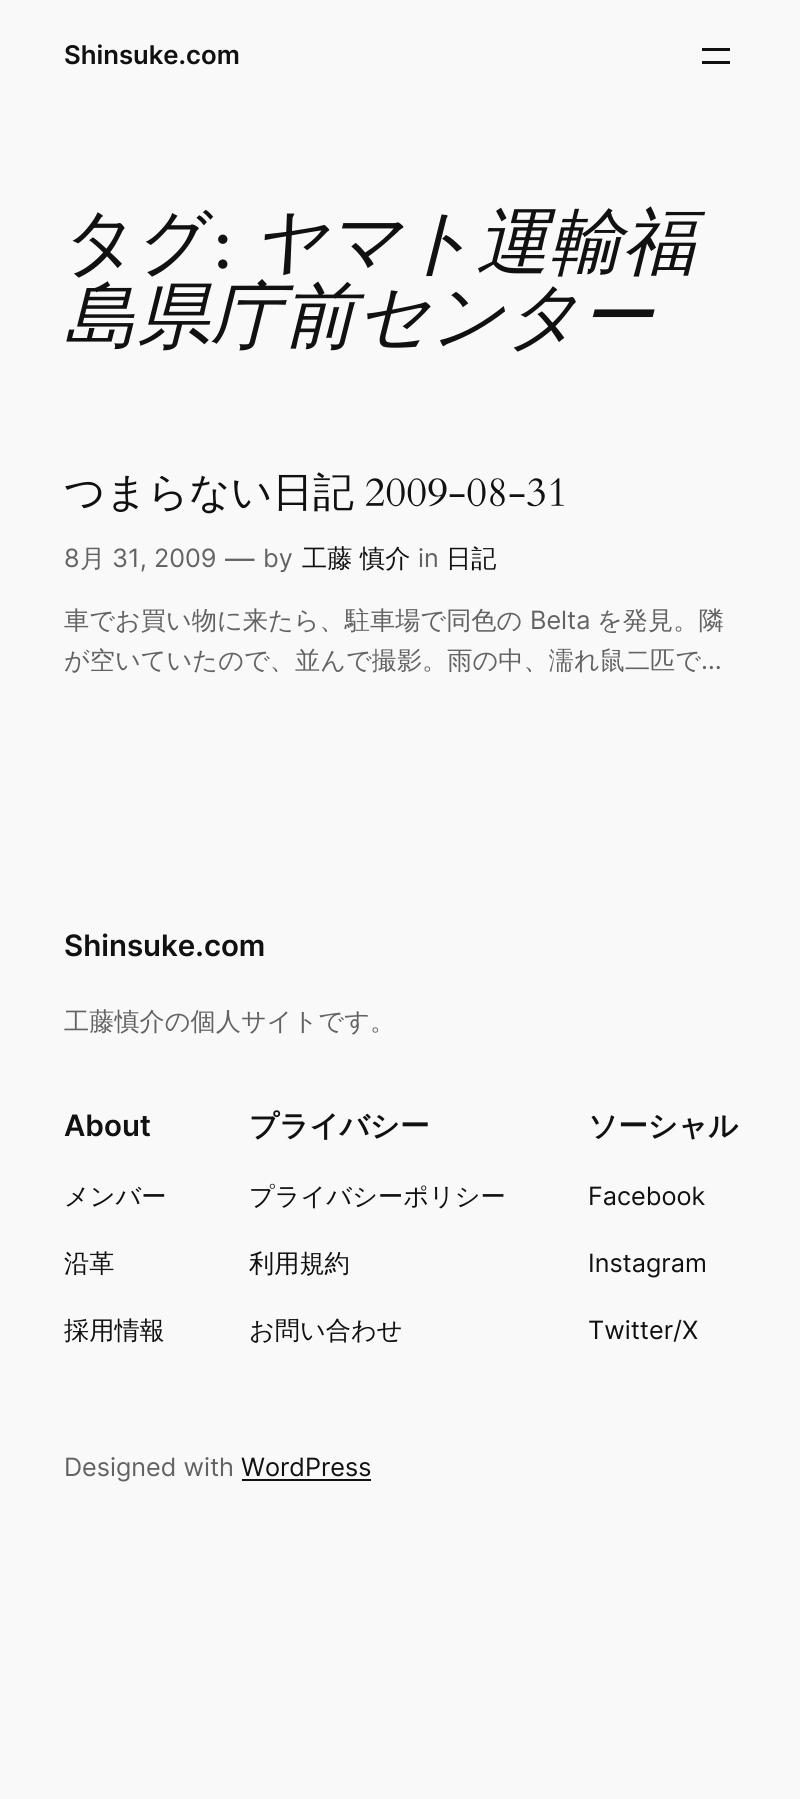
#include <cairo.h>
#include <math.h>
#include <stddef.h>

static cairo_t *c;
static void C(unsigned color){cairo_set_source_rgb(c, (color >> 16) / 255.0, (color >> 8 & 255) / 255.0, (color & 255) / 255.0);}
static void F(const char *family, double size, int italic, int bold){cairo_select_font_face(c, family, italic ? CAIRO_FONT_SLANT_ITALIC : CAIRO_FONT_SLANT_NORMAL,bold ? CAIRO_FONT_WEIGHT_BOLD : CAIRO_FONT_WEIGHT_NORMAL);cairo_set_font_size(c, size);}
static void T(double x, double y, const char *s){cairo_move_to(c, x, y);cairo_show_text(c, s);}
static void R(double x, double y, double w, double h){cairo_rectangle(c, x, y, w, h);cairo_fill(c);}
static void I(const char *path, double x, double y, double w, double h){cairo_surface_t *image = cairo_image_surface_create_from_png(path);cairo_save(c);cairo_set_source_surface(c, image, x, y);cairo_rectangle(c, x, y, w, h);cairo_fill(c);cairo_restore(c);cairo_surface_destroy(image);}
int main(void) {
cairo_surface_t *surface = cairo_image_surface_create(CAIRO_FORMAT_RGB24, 800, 1799);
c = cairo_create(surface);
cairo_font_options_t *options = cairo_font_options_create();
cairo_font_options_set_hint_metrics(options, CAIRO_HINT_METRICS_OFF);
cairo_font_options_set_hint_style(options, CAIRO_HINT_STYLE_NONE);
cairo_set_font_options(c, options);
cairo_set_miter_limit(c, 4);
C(0xf9f9f9);
cairo_paint(c);
F("Inter SemiBold",25.75,0,0);
C(0x111111);
T(64,64,"Shinsuke.com");
R(702,48,28,3);
R(702,61,28,3);
F("WenQuanYi Zen Hei Medium",73,0,0);
T(64,267,"タグ");
I("1.png",218,234,10,35);
F("WenQuanYi Zen Hei Medium",73,1,0);
T(252,267,"ヤマト運輸福");
T(64,341,"島県庁前センター");
F("WenQuanYi Zen Hei Medium",40.75,0,0);
T(64,506,"つまらない日記");
I("2.png",366,478,198,29);
F("Inter",25.2,0,0);
C(0x636363);
T(64,567,"8");
F("WenQuanYi Zen Hei Medium",25.2,0,0);
T(80,567,"月");
F("Inter",25.2,0,0);
T(112,567,"31, 2009");
F("Inter",29.5,0,0);
T(225,569,"—");
F("Inter",25.2,0,0);
T(263,567,"by");
F("WenQuanYi Zen Hei Medium",25.2,0,0);
C(0x111111);
T(302,567,"工藤 慎介");
F("Inter",25.2,0,0);
C(0x636363);
T(418,567,"in");
F("WenQuanYi Zen Hei Medium",25.2,0,0);
C(0x111111);
T(446,567,"日記");
C(0x636363);
T(64,629,"車でお買い物に来たら、駐車場で同色の");
F("Inter",25.2,0,0);
T(530,629,"Belta");
F("WenQuanYi Zen Hei Medium",25.2,0,0);
T(597,629,"を発見。隣");
T(64,669,"が空いていたので、並んで撮影。雨の中、濡れ鼠二匹で");
F("Inter",25.2,0,0);
T(701,669,"…");
F("Inter SemiBold",29.5,0,0);
C(0x111111);
T(64,956,"Shinsuke.com");
F("WenQuanYi Zen Hei Medium",25.2,0,0);
C(0x636363);
T(64,1030,"工藤慎介の個人サイトです。");
F("Inter SemiBold",29.5,0,0);
C(0x111111);
T(64,1136,"About");
F("WenQuanYi Zen Hei Medium",25.2,0,0);
T(64,1205,"メンバー");
T(64,1272,"沿革");
T(64,1339,"採用情報");
F("WenQuanYi Zen Hei",29.5,0,1);
T(249,1136,"プライバシー");
F("WenQuanYi Zen Hei Medium",25.2,0,0);
T(249,1205,"プライバシーポリシー");
T(249,1272,"利用規約");
T(249,1339,"お問い合わせ");
F("WenQuanYi Zen Hei",29.5,0,1);
T(588,1136,"ソーシャル");
F("Inter",25.2,0,0);
T(588,1205,"Facebook");
T(588,1272,"Instagram");
T(588,1339,"Twitter/X");
C(0x636363);
T(64,1476,"Designed with");
C(0x111111);
T(241,1476,"WordPress");
R(242,1479,129,2);
cairo_surface_write_to_png(surface, "o.png");
cairo_font_options_destroy(options);
cairo_destroy(c);
cairo_surface_destroy(surface);
return 0;
}
